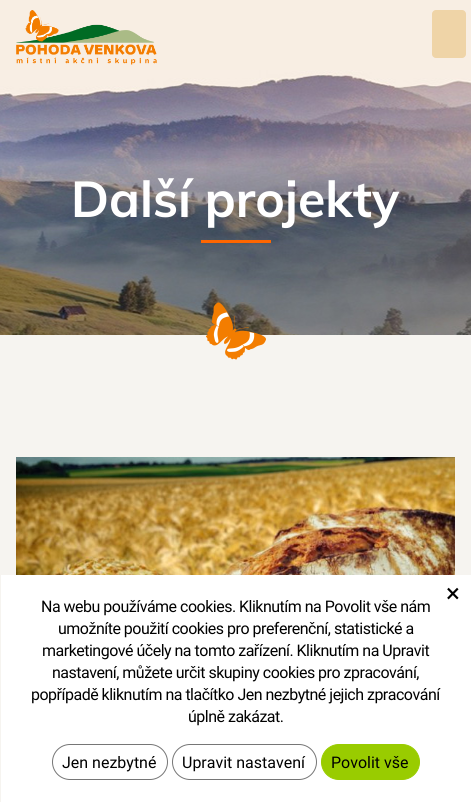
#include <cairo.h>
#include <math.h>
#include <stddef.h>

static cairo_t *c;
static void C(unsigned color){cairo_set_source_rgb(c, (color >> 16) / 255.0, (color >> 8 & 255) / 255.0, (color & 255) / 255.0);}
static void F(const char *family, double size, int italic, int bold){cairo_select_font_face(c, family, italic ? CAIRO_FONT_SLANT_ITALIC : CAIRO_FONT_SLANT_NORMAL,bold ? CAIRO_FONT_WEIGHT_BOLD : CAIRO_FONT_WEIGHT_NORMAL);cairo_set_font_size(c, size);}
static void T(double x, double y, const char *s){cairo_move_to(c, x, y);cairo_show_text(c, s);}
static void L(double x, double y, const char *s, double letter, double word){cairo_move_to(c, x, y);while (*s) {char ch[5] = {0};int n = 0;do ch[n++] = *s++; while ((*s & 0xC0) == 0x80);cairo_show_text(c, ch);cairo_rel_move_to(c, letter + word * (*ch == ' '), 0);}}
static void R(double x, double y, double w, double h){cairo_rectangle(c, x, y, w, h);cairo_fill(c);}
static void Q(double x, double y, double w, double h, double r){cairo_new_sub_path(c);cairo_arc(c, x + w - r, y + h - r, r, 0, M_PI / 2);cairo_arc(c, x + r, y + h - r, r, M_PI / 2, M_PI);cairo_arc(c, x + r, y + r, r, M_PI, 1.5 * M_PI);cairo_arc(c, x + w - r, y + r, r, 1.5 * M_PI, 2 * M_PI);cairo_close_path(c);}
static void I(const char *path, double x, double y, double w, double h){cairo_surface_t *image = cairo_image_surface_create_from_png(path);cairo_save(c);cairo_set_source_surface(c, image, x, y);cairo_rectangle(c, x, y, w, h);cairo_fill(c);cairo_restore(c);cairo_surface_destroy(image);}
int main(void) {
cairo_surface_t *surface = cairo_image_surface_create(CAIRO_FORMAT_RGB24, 471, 802);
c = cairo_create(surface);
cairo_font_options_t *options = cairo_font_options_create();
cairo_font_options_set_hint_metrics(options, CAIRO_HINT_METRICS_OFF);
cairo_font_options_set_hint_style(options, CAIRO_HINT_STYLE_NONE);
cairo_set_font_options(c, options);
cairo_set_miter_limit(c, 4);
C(0xf6f4f0);
cairo_paint(c);
C(0xf8eee3);
R(0,0,471,70);
I("1.png",16,10,141,55);
C(0xefd4a7);
Q(432,10,34,48,4);
cairo_fill(c);
I("2.png",0,70,471,265);
F("Muli",50,0,1);
C(0xffffff);
T(71,217,"Další projekty");
C(0xff6600);
R(201,240,70,3);
I("3.png",206,302,60,58);
I("4.png",16,457,439,118);
C(0xffffff);
R(1,575,470,227);
F("Roboto",26,0,0);
C(0x000000);
T(446,602,"×");
F("Roboto",16,0,0);
L(41,612,"Na webu používáme cookies. Kliknutím na Povolit vše nám",-.5,0);
L(58,634,"umožníte použití cookies pro preferenční, statistické a",-.5,0);
L(42,656,"marketingové účely na tomto zařízení. Kliknutím na Upravit",-.5,0);
L(52,678,"nastavení, můžete určit skupiny cookies pro zpracování,",-.5,0);
L(31,700,"popřípadě kliknutím na tlačítko Jen nezbytné jejich zpracování",-.5,0);
L(188,722,"úplně zakázat.",-.5,0);
Q(52.5,744.5,115,35,17.5);
C(0x767676);
cairo_set_line_width(c,1);
cairo_stroke(c);
C(0x000000);
T(62,768,"Jen nezbytné");
Q(172.5,744.5,144,35,17.5);
C(0x767676);
cairo_stroke(c);
C(0x000000);
T(182,768,"Upravit nastavení");
C(0x99cc00);
Q(321.5,744.5,98,35,17.5);
cairo_fill_preserve(c);
cairo_stroke(c);
C(0x000000);
T(331,768,"Povolit vše");
cairo_surface_write_to_png(surface, "o.png");
cairo_font_options_destroy(options);
cairo_destroy(c);
cairo_surface_destroy(surface);
return 0;
}
